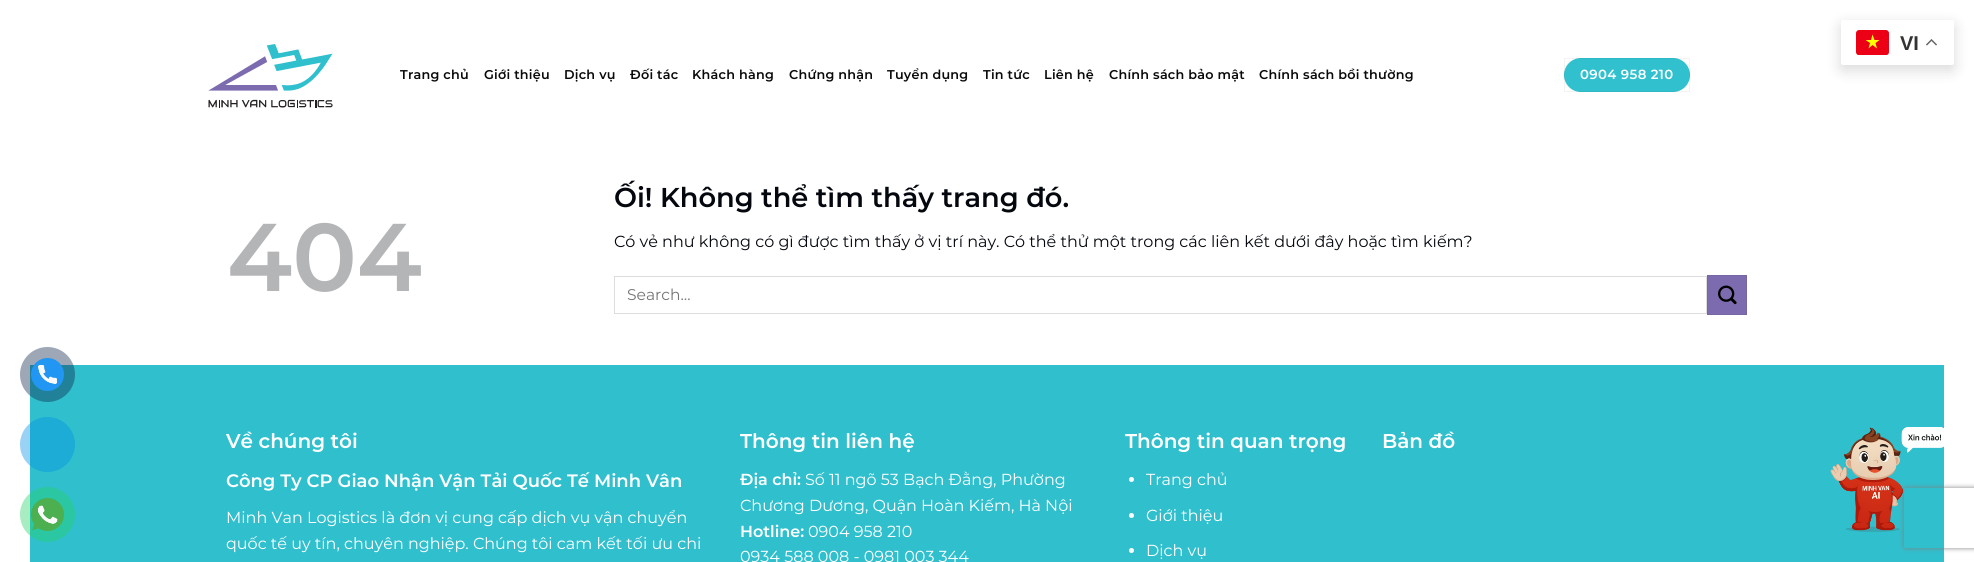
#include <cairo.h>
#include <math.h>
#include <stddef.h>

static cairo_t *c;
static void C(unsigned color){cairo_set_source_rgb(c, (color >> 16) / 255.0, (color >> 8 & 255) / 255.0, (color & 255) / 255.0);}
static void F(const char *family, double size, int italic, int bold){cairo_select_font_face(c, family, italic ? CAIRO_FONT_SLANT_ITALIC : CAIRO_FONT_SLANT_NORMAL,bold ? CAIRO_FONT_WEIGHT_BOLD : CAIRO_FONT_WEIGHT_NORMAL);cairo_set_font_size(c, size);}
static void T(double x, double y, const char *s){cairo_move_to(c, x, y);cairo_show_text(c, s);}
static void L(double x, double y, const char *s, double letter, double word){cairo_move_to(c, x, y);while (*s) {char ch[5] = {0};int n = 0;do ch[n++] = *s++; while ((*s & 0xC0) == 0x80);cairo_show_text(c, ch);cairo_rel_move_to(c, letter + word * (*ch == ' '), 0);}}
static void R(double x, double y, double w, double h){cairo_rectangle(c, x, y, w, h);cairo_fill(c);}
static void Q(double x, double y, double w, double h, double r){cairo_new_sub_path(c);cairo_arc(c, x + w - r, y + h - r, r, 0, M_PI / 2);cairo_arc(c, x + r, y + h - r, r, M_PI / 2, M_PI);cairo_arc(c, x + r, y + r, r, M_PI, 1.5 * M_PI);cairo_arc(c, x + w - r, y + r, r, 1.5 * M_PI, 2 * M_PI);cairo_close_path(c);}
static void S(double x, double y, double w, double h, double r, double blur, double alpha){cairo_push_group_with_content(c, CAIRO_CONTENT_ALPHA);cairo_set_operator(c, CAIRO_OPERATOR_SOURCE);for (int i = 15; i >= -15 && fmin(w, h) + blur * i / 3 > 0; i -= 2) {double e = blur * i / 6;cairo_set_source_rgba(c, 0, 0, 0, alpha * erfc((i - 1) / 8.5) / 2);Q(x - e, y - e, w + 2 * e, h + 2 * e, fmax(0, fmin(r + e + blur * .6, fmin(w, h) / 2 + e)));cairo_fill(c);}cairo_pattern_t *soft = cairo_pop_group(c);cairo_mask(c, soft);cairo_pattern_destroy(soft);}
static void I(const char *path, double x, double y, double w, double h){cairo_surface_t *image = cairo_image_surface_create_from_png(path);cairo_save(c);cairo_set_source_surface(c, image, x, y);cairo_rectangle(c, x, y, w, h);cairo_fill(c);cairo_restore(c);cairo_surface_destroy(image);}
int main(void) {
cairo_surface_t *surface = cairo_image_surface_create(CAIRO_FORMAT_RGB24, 1974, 562);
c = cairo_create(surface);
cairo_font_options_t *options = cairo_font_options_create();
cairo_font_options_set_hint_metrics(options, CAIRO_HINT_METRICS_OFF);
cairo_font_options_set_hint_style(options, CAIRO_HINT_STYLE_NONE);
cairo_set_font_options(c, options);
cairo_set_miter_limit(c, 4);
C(0xffffff);
cairo_paint(c);
C(0x000000);
S(1841,25,113,45,2,7.5,.15);
C(0xffffff);
Q(1841,20,113,45,2);
cairo_fill(c);
C(0xec0015);
cairo_new_path(c);
cairo_move_to(c,1859,30);
cairo_line_to(c,1886,30);
cairo_curve_to(c,1887.5,30,1889,31.5,1889,33);
cairo_line_to(c,1889,52);
cairo_curve_to(c,1889,53,1888.5,54.5,1887,55);
cairo_line_to(c,1858,55);
cairo_curve_to(c,1856.5,54.5,1856,53,1856,52);
cairo_line_to(c,1856,33);
cairo_curve_to(c,1856,31.5,1857.5,30,1859,30);
cairo_close_path(c);
cairo_fill(c);
C(0xffff00);
cairo_set_fill_rule(c,CAIRO_FILL_RULE_EVEN_ODD);
cairo_new_path(c);
cairo_move_to(c,1877,48.5);
cairo_line_to(c,1872.5,45);
cairo_line_to(c,1868.5,48.5);
cairo_line_to(c,1870,43);
cairo_line_to(c,1865.5,40);
cairo_line_to(c,1871,40);
cairo_line_to(c,1872.5,34.5);
cairo_line_to(c,1874.5,40);
cairo_line_to(c,1879.5,40);
cairo_line_to(c,1875.5,43);
cairo_close_path(c);
cairo_fill(c);
F("Liberation Sans",20,0,1);
C(0x333333);
T(1900,50,"VI");
I("1.png",1926,39,11,7);
C(0x30bfcd);
R(30,365,1914,197);
cairo_set_source_rgba(c,0.043,0.137,0.29,0.4);
cairo_arc(c,47.5,374.5,27.5,0,2 * M_PI);
cairo_fill(c);
I("2.png",31,358,33,33);
cairo_set_source_rgba(c,0,0.561,0.898,0.4);
cairo_arc(c,47.5,444.5,27.5,0,2 * M_PI);
cairo_fill(c);
cairo_set_source_rgba(c,0.145,0.827,0.4,0.4);
cairo_arc(c,47.5,514.5,27.5,0,2 * M_PI);
cairo_fill(c);
I("3.png",31,498,33,33);
I("4.png",208,44,125,64);
F("Montserrat SemiBold",12.75,0,0);
C(0x0a0a0a);
L(400,79,"Trang chủ",.25,0);
L(484,79,"Giới thiệu",.25,0);
L(564,79,"Dịch vụ",.25,0);
L(630,79,"Đối tác",.25,0);
L(692,79,"Khách hàng",.25,0);
L(789,79,"Chứng nhận",.25,0);
L(887,79,"Tuyển dụng",.25,0);
L(983,79,"Tin tức",.25,0);
L(1044,79,"Liên hệ",.25,0);
L(1109,79,"Chính sách bảo mật",.25,0);
L(1259,79,"Chính sách bồi thường",.25,0);
C(0x30c0ce);
Q(1564,58,126,34,17);
cairo_fill(c);
cairo_rectangle(c,1564.5,58.5,125,33);
cairo_set_source_rgba(c,0,0,0,0.05);
cairo_set_line_width(c,1);
cairo_stroke(c);
F("Montserrat SemiBold",13.25,0,0);
C(0xffffff);
L(1580,79,"0904 958 210",.4,0);
F("Montserrat SemiBold",96,0,0);
C(0xb4b5b7);
T(227,291,"404");
F("Montserrat SemiBold",27.25,0,0);
C(0x04080e);
T(614,207,"Ối! Không thể tìm thấy trang đó.");
F("Montserrat",16,0,0);
T(614,247,"Có vẻ như không có gì được tìm thấy ở vị trí này. Có thể thử một trong các liên kết dưới đây hoặc tìm kiếm?");
cairo_rectangle(c,614.5,276.5,1092,37);
C(0xdddddd);
cairo_stroke(c);
F("Montserrat",15.5,0,0);
C(0x757575);
T(627,300,"Search…");
C(0x7d6baf);
cairo_rectangle(c,1707.5,275.5,39,39);
cairo_fill_preserve(c);
C(0x7766a6);
cairo_stroke(c);
I("5.png",1718,285,19,20);
F("Montserrat SemiBold",20,0,0);
C(0xffffff);
T(226,448,"Về chúng tôi");
F("Montserrat SemiBold",18,0,0);
T(226,487,"Công Ty CP Giao Nhận Vận Tải Quốc Tế Minh Vân");
F("Montserrat",16,0,0);
T(226,523,"Minh Van Logistics là đơn vị cung cấp dịch vụ vận chuyển");
T(226,549,"quốc tế uy tín, chuyên nghiệp. Chúng tôi cam kết tối ưu chi");
F("Montserrat SemiBold",20,0,0);
T(740,448,"Thông tin liên hệ");
F("Montserrat SemiBold",16,0,0);
T(740,485,"Địa chỉ:");
F("Montserrat",16,0,0);
T(805,485,"Số 11 ngõ 53 Bạch Đằng, Phường");
T(740,511,"Chương Dương, Quận Hoàn Kiếm, Hà Nội");
F("Montserrat SemiBold",16,0,0);
T(740,537,"Hotline:");
F("Montserrat",16,0,0);
T(808,537,"0904 958 210");
T(740,562,"0934 588 008 - 0981 003 344");
F("Montserrat SemiBold",20,0,0);
T(1125,448,"Thông tin quan trọng");
cairo_new_path(c);
cairo_arc(c,1131.5,479.5,2.5,0,2 * M_PI);
cairo_fill(c);
F("Montserrat",16,0,0);
T(1146,485,"Trang chủ");
cairo_new_path(c);
cairo_arc(c,1131.5,515.5,2.5,0,2 * M_PI);
cairo_fill(c);
T(1146,521,"Giới thiệu");
cairo_new_path(c);
cairo_arc(c,1131.5,550.5,2.5,0,2 * M_PI);
cairo_fill(c);
T(1146,556,"Dịch vụ");
F("Montserrat SemiBold",20,0,0);
T(1382,448,"Bản đồ");
cairo_save(c);
cairo_new_path(c);
cairo_move_to(c,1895,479);
cairo_line_to(c,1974,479);
cairo_line_to(c,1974,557);
cairo_line_to(c,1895,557);
cairo_close_path(c);
cairo_move_to(c,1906,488);
cairo_line_to(c,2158,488);
cairo_curve_to(c,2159,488,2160,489,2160,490);
cairo_line_to(c,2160,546);
cairo_curve_to(c,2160,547,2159,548,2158,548);
cairo_line_to(c,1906,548);
cairo_curve_to(c,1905,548,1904,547,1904,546);
cairo_line_to(c,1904,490);
cairo_curve_to(c,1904,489,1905,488,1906,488);
cairo_close_path(c);
cairo_clip(c);
C(0x808080);
S(1904,488,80,60,2,2.5,1);
cairo_restore(c);
I("6.png",1830,427,114,105);
cairo_surface_write_to_png(surface, "o.png");
cairo_font_options_destroy(options);
cairo_destroy(c);
cairo_surface_destroy(surface);
return 0;
}
